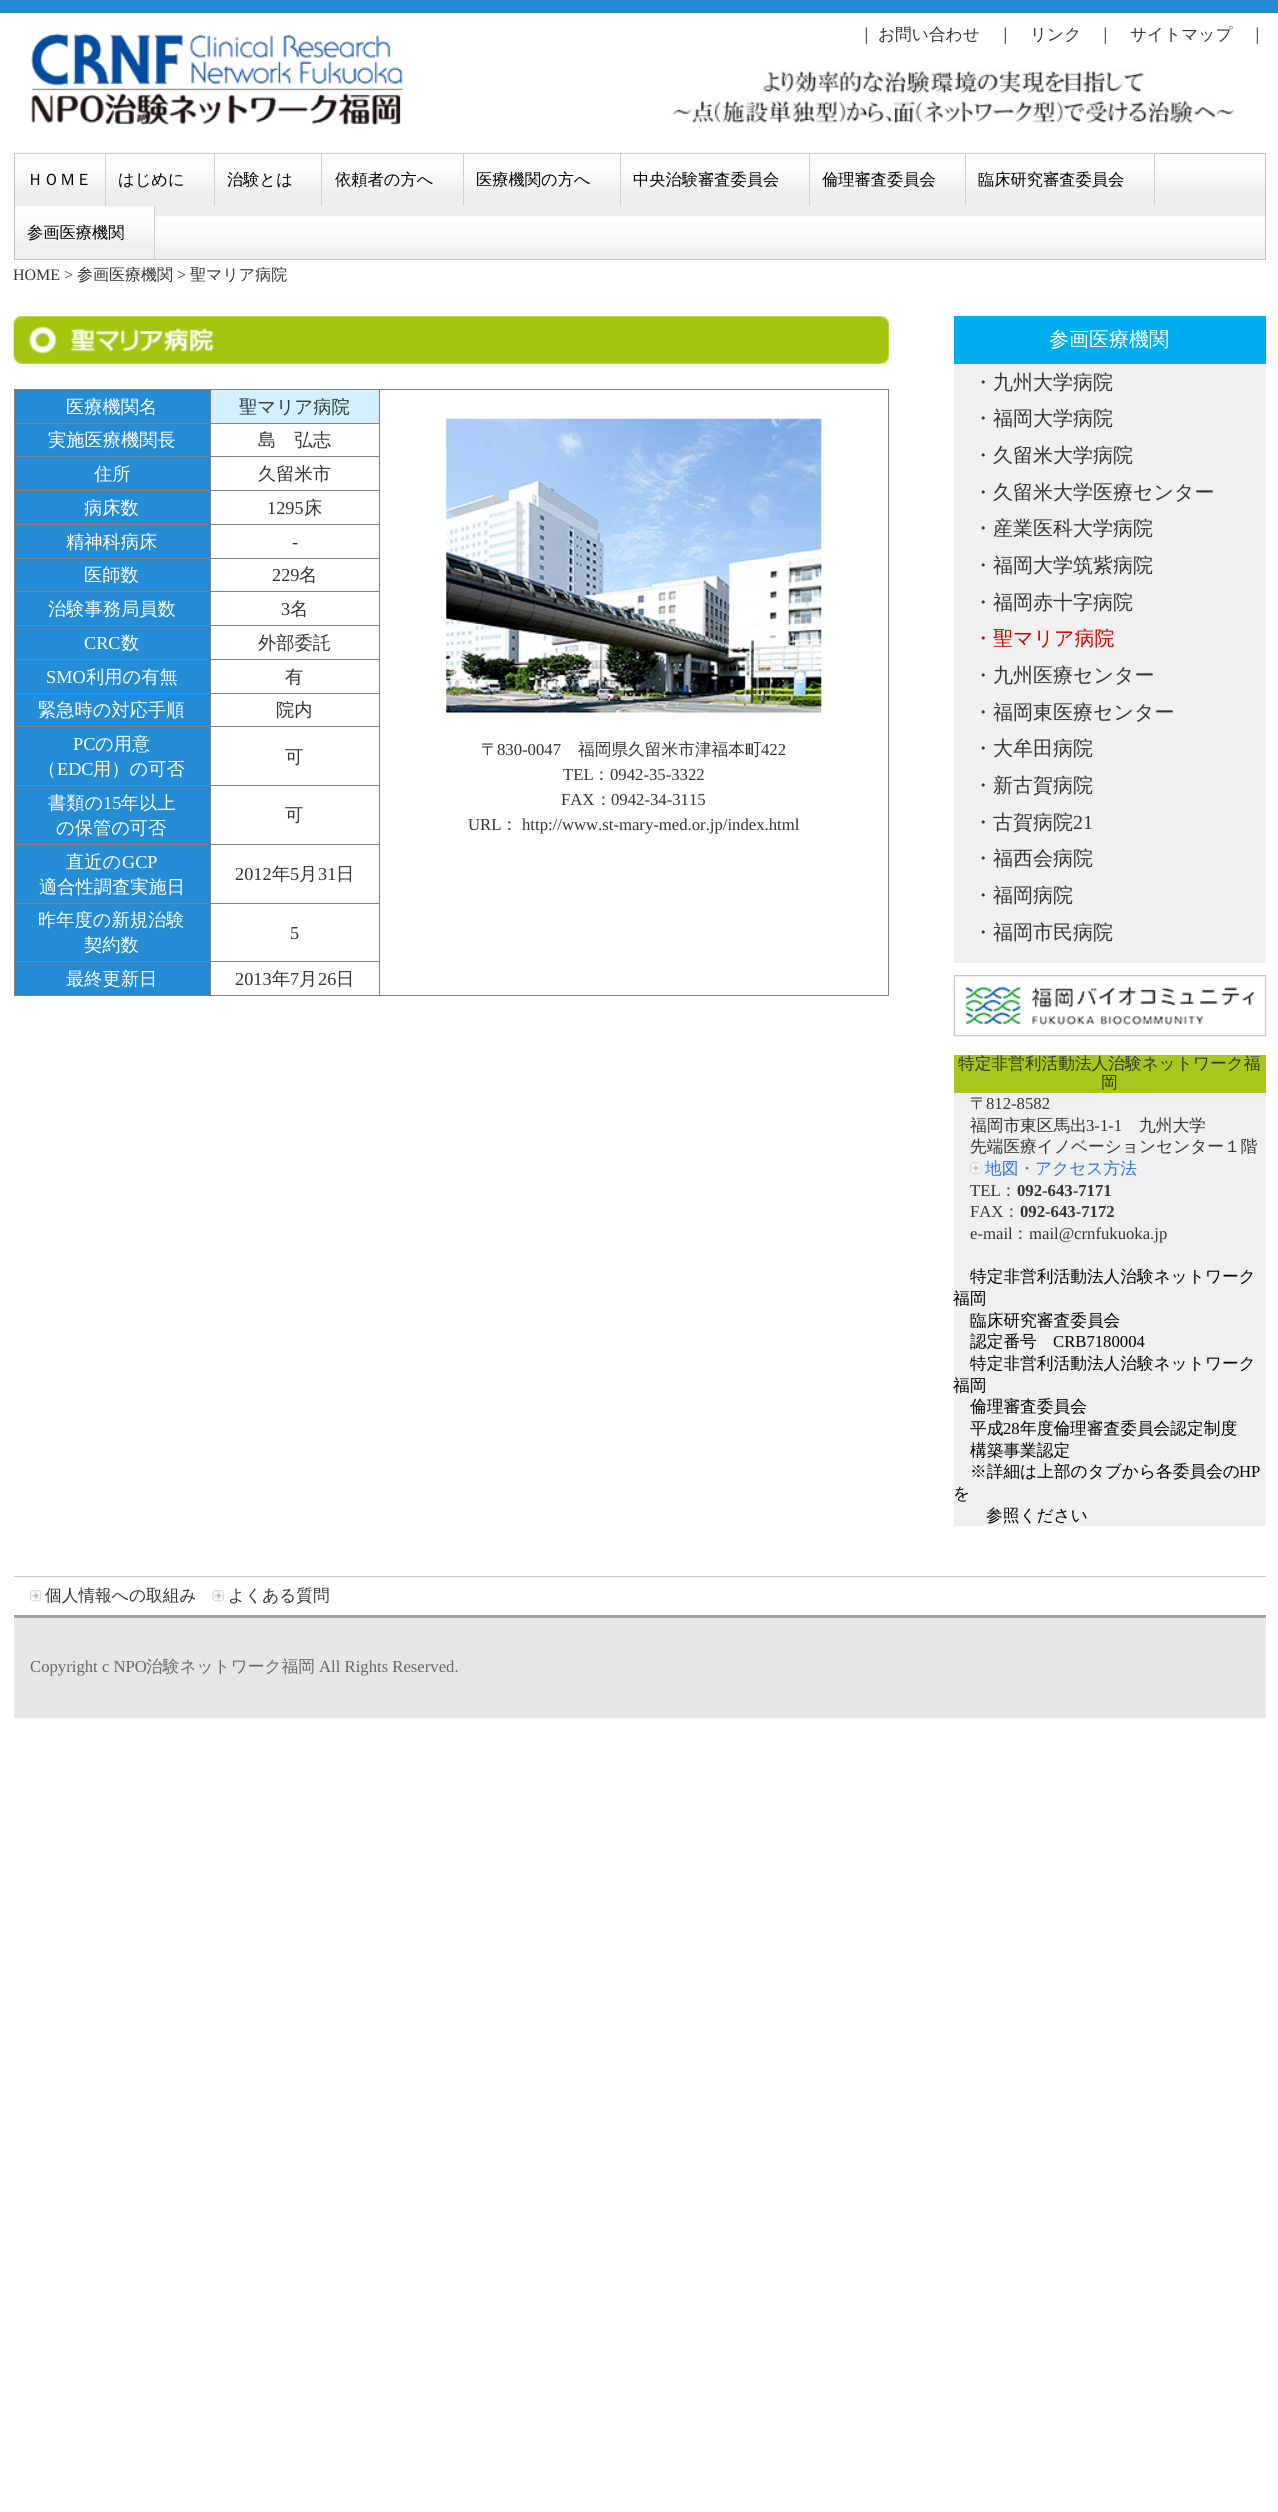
#include <cairo.h>
#include <math.h>
#include <stddef.h>

static cairo_t *c;
static void C(unsigned color){cairo_set_source_rgb(c, (color >> 16) / 255.0, (color >> 8 & 255) / 255.0, (color & 255) / 255.0);}
static void F(const char *family, double size, int italic, int bold){cairo_select_font_face(c, family, italic ? CAIRO_FONT_SLANT_ITALIC : CAIRO_FONT_SLANT_NORMAL,bold ? CAIRO_FONT_WEIGHT_BOLD : CAIRO_FONT_WEIGHT_NORMAL);cairo_set_font_size(c, size);}
static void T(double x, double y, const char *s){cairo_move_to(c, x, y);cairo_show_text(c, s);}
static void R(double x, double y, double w, double h){cairo_rectangle(c, x, y, w, h);cairo_fill(c);}
static void I(const char *path, double x, double y, double w, double h){cairo_surface_t *image = cairo_image_surface_create_from_png(path);cairo_save(c);cairo_set_source_surface(c, image, x, y);cairo_rectangle(c, x, y, w, h);cairo_fill(c);cairo_restore(c);cairo_surface_destroy(image);}
int main(void) {
cairo_surface_t *surface = cairo_image_surface_create(CAIRO_FORMAT_RGB24, 1278, 2512);
c = cairo_create(surface);
cairo_font_options_t *options = cairo_font_options_create();
cairo_font_options_set_hint_metrics(options, CAIRO_HINT_METRICS_OFF);
cairo_font_options_set_hint_style(options, CAIRO_HINT_STYLE_NONE);
cairo_set_font_options(c, options);
cairo_set_miter_limit(c, 4);
C(0xffffff);
cairo_paint(c);
C(0x248cd5);
R(0,0,1278,13);
I("1.png",31,33,373,93);
F("WenQuanYi Zen Hei Medium",16.7,0,0);
C(0x333333);
T(858,40,"｜");
T(878,40,"お問い合わせ");
T(997,40,"｜");
T(1030,40,"リンク");
T(1097,40,"｜");
T(1130,40,"サイトマップ");
T(1249,40,"｜");
I("2.png",671,69,569,59);
I("3.png",13,152,1254,108);
cairo_rectangle(c,14.5,153.5,1251,106);
C(0xc0c0c0);
cairo_set_line_width(c,1);
cairo_stroke(c);
C(0xd0d0d0);
R(15,153,91,1);
C(0xcecece);
R(105,154,1,52);
F("WenQuanYi Zen Hei Medium",16.25,0,0);
C(0x000000);
T(27,185,"ＨＯＭＥ");
I("8.png",15,206,139,45);
C(0xcecece);
R(154,206,1,53);
I("4.png",106,153,109,54);
R(214,154,1,52);
C(0x000000);
T(118,185,"はじめに");
I("6.png",322,153,142,1);
I("5.png",215,153,108,1);
C(0xcecece);
R(321,154,1,52);
C(0x000000);
T(227,185,"治験とは");
C(0xcecece);
R(463,154,1,52);
C(0x000000);
T(335,185,"依頼者の方へ");
C(0xd0d0d0);
R(464,153,157,1);
C(0xcecece);
R(620,154,1,52);
C(0x000000);
T(476,185,"医療機関の方へ");
I("7.png",621,153,189,1);
C(0xcecece);
R(809,154,1,52);
C(0x000000);
T(633,185,"中央治験審査委員会");
C(0xd0d0d0);
R(810,153,156,1);
C(0xcecece);
R(965,154,1,52);
C(0x000000);
T(822,185,"倫理審査委員会");
I("7.png",966,153,189,1);
C(0xcecece);
R(1154,154,1,52);
C(0x000000);
T(978,185,"臨床研究審査委員会");
T(27,238,"参画医療機関");
F("Liberation Serif",16,0,0);
C(0x333333);
T(13,280,"HOME >");
F("WenQuanYi Zen Hei Medium",16,0,0);
T(77,280,"参画医療機関");
F("Liberation Serif",16,0,0);
T(177,280,">");
F("WenQuanYi Zen Hei Medium",16,0,0);
T(190,280,"聖マリア病院");
I("9.png",13,316,876,48);
C(0x248cd4);
cairo_rectangle(c,14.5,389.5,196,34);
cairo_fill_preserve(c);
C(0x808080);
cairo_stroke(c);
F("WenQuanYi Zen Hei Medium",18.25,0,0);
C(0xffffff);
T(66,413,"医療機関名");
C(0xd2f0ff);
R(211,390,168,33);
C(0x808080);
R(211,389,678,1);
R(379,389,1,607);
R(211,423,169,1);
C(0x333333);
T(239,413,"聖マリア病院");
C(0x808080);
R(888,389,1,607);
R(380,995,509,1);
I("10.png",446,418,376,295);
F("WenQuanYi Zen Hei Medium",16.7,0,0);
C(0x333333);
T(481,755,"〒");
F("Liberation Serif",16.7,0,0);
T(497,755,"830-0047");
F("WenQuanYi Zen Hei Medium",16.7,0,0);
T(578,755,"福岡県久留米市津福本町");
F("Liberation Serif",16.7,0,0);
T(761,755,"422");
T(563,780,"TEL");
F("WenQuanYi Zen Hei Medium",16.7,0,0);
T(593,780,"：");
F("Liberation Serif",16.7,0,0);
T(610,780,"0942-35-3322");
T(561,805,"FAX");
F("WenQuanYi Zen Hei Medium",16.7,0,0);
T(595,805,"：");
F("Liberation Serif",16.7,0,0);
T(611,805,"0942-34-3115");
T(468,830,"URL");
F("WenQuanYi Zen Hei Medium",16.7,0,0);
T(501,830,"：");
F("Liberation Serif",16.7,0,0);
T(522,830,"http://www.st-mary-med.or.jp/index.html");
C(0x248cd4);
R(15,424,195,66);
C(0x808080);
R(210,424,1,572);
R(14,456,366,1);
R(14,424,1,34);
F("WenQuanYi Zen Hei Medium",18.25,0,0);
C(0xffffff);
T(48,446,"実施医療機関長");
C(0x333333);
T(258,446,"島　弘志");
C(0x808080);
R(14,490,366,1);
R(14,458,1,33);
C(0xffffff);
T(94,480,"住所");
C(0x333333);
T(258,480,"久留米市");
C(0x248cd4);
R(15,491,195,33);
C(0x808080);
R(14,524,366,1);
R(14,491,1,34);
C(0xffffff);
T(84,514,"病床数");
F("Liberation Serif",18.25,0,0);
C(0x333333);
T(267,514,"1295");
F("WenQuanYi Zen Hei Medium",18.25,0,0);
T(304,514,"床");
C(0x248cd4);
R(15,525,195,33);
C(0x808080);
R(14,558,366,1);
R(14,525,1,34);
C(0xffffff);
T(66,548,"精神科病床");
F("Liberation Serif",18.25,0,0);
C(0x333333);
T(292,548,"-");
C(0x248cd4);
R(15,559,195,66);
C(0x808080);
R(14,591,366,1);
R(14,559,1,34);
F("WenQuanYi Zen Hei Medium",18.25,0,0);
C(0xffffff);
T(84,581,"医師数");
F("Liberation Serif",18.25,0,0);
C(0x333333);
T(272,581,"229");
F("WenQuanYi Zen Hei Medium",18.25,0,0);
T(299,581,"名");
C(0x808080);
R(14,625,366,1);
R(14,593,1,33);
C(0xffffff);
T(48,615,"治験事務局員数");
F("Liberation Serif",18.25,0,0);
C(0x333333);
T(281,615,"3");
F("WenQuanYi Zen Hei Medium",18.25,0,0);
T(290,615,"名");
C(0x248cd4);
R(15,626,195,33);
C(0x808080);
R(14,659,366,1);
R(14,626,1,34);
F("Liberation Serif",18.25,0,0);
C(0xffffff);
T(84,649,"CRC");
F("WenQuanYi Zen Hei Medium",18.25,0,0);
T(121,649,"数");
C(0x333333);
T(258,649,"外部委託");
C(0x248cd4);
R(15,660,195,33);
C(0x808080);
R(14,693,366,1);
R(14,660,1,34);
F("Liberation Serif",18.25,0,0);
C(0xffffff);
T(46,683,"SMO");
F("WenQuanYi Zen Hei Medium",18.25,0,0);
T(86,683,"利用の有無");
C(0x333333);
T(285,683,"有");
C(0x248cd4);
R(15,694,195,91);
C(0x808080);
R(14,726,366,1);
R(14,694,1,34);
C(0xffffff);
T(38,716,"緊急時の対応手順");
C(0x333333);
T(276,716,"院内");
C(0x808080);
R(14,785,366,1);
R(14,728,1,58);
F("Liberation Serif",18.25,0,0);
C(0xffffff);
T(73,750,"PC");
F("WenQuanYi Zen Hei Medium",18.25,0,0);
T(95,750,"の用意");
T(38,775,"（");
F("Liberation Serif",18.25,0,0);
T(57,775,"EDC");
F("WenQuanYi Zen Hei Medium",18.25,0,0);
T(93,775,"用）の可否");
C(0x333333);
T(285,763,"可");
C(0x248cd4);
R(15,786,195,58);
C(0x808080);
R(14,844,366,1);
R(14,786,1,59);
C(0xffffff);
T(48,809,"書類の");
F("Liberation Serif",18.25,0,0);
T(103,809,"15");
F("WenQuanYi Zen Hei Medium",18.25,0,0);
T(121,809,"年以上");
T(56,834,"の保管の可否");
C(0x333333);
T(285,821,"可");
C(0x248cd4);
R(15,845,195,58);
C(0x808080);
R(14,903,366,1);
R(14,845,1,59);
C(0xffffff);
T(66,868,"直近の");
F("Liberation Serif",18.25,0,0);
T(122,868,"GCP");
F("WenQuanYi Zen Hei Medium",18.25,0,0);
T(39,893,"適合性調査実施日");
F("Liberation Serif",18.25,0,0);
C(0x333333);
T(235,880,"2012");
F("WenQuanYi Zen Hei Medium",18.25,0,0);
T(272,880,"年");
F("Liberation Serif",18.25,0,0);
T(290,880,"5");
F("WenQuanYi Zen Hei Medium",18.25,0,0);
T(299,880,"月");
F("Liberation Serif",18.25,0,0);
T(318,880,"31");
F("WenQuanYi Zen Hei Medium",18.25,0,0);
T(336,880,"日");
C(0x248cd4);
R(15,904,195,91);
C(0x808080);
R(14,961,366,1);
R(14,904,1,59);
C(0xffffff);
T(38,926,"昨年度の新規治験");
T(84,951,"契約数");
F("Liberation Serif",18.25,0,0);
C(0x333333);
T(290,939,"5");
C(0x808080);
R(14,995,366,1);
R(14,963,1,33);
F("WenQuanYi Zen Hei Medium",18.25,0,0);
C(0xffffff);
T(66,985,"最終更新日");
F("Liberation Serif",18.25,0,0);
C(0x333333);
T(235,985,"2013");
F("WenQuanYi Zen Hei Medium",18.25,0,0);
T(272,985,"年");
F("Liberation Serif",18.25,0,0);
T(290,985,"7");
F("WenQuanYi Zen Hei Medium",18.25,0,0);
T(299,985,"月");
F("Liberation Serif",18.25,0,0);
T(318,985,"26");
F("WenQuanYi Zen Hei Medium",18.25,0,0);
T(336,985,"日");
C(0x00aeef);
R(954,316,312,48);
F("WenQuanYi Zen Hei Medium",20,0,0);
C(0xffffff);
T(1049,346,"参画医療機関");
C(0xf0f0f0);
R(954,364,312,599);
C(0x333333);
T(973,389,"・九州大学病院");
T(973,425,"・福岡大学病院");
T(973,462,"・久留米大学病院");
T(973,499,"・久留米大学医療センター");
T(973,535,"・産業医科大学病院");
T(973,572,"・福岡大学筑紫病院");
T(973,609,"・福岡赤十字病院");
C(0xcc0000);
T(973,645,"・聖マリア病院");
C(0x333333);
T(973,682,"・九州医療センター");
T(973,719,"・福岡東医療センター");
T(973,755,"・大牟田病院");
T(973,792,"・新古賀病院");
T(973,829,"・古賀病院");
F("Liberation Serif",20,0,0);
T(1073,829,"21");
F("WenQuanYi Zen Hei Medium",20,0,0);
T(973,865,"・福西会病院");
T(973,902,"・福岡病院");
T(973,939,"・福岡市民病院");
I("11.png",953,975,314,62);
C(0xa6c81c);
R(954,1055,312,38);
F("WenQuanYi Zen Hei Medium",16.7,0,0);
C(0x333333);
T(958,1069,"特定非営利活動法人治験ネットワーク福");
T(1101,1088,"岡");
C(0xf0f0f0);
R(954,1093,312,433);
C(0x333333);
T(970,1109,"〒");
F("Liberation Serif",16.7,0,0);
T(986,1109,"812-8582");
F("WenQuanYi Zen Hei Medium",16.7,0,0);
T(970,1131,"福岡市東区馬出");
F("Liberation Serif",16.7,0,0);
T(1086,1131,"3-1-1");
F("WenQuanYi Zen Hei Medium",16.7,0,0);
T(1139,1131,"九州大学");
T(970,1152,"先端医療イノベーションセンター１階");
I("12.png",970,1162,12,12);
C(0x2875de);
T(985,1174,"地図・アクセス方法");
F("Liberation Serif",16.7,0,0);
C(0x333333);
T(970,1196,"TEL");
F("WenQuanYi Zen Hei Medium",16.7,0,0);
T(1000,1196,"：");
F("Liberation Serif",16.7,0,1);
T(1017,1196,"092-643-7171");
F("Liberation Serif",16.7,0,0);
T(970,1217,"FAX");
F("WenQuanYi Zen Hei Medium",16.7,0,0);
T(1003,1217,"：");
F("Liberation Serif",16.7,0,1);
T(1020,1217,"092-643-7172");
F("Liberation Serif",16.7,0,0);
T(970,1239,"e-mail");
F("WenQuanYi Zen Hei Medium",16.7,0,0);
T(1012,1239,"：");
F("Liberation Serif",16.7,0,0);
T(1029,1239,"mail@crnfukuoka.jp");
F("WenQuanYi Zen Hei Medium",16.7,0,0);
C(0x000000);
T(970,1282,"特定非営利活動法人治験ネットワーク");
T(953,1304,"福岡");
T(970,1326,"臨床研究審査委員会");
T(970,1347,"認定番号");
F("Liberation Serif",16.7,0,0);
T(1053,1347,"CRB7180004");
F("WenQuanYi Zen Hei Medium",16.7,0,0);
T(970,1369,"特定非営利活動法人治験ネットワーク");
T(953,1391,"福岡");
T(970,1412,"倫理審査委員会");
T(970,1434,"平成");
F("Liberation Serif",16.7,0,0);
T(1003,1434,"28");
F("WenQuanYi Zen Hei Medium",16.7,0,0);
T(1020,1434,"年度倫理審査委員会認定制度");
T(970,1456,"構築事業認定");
T(970,1477,"※詳細は上部のタブから各委員会の");
F("Liberation Serif",16.7,0,0);
T(1239,1477,"HP");
F("WenQuanYi Zen Hei Medium",16.7,0,0);
T(953,1499,"を");
T(986,1521,"参照ください");
C(0xcccccc);
R(14,1576,1252,1);
I("13.png",30,1590,12,12);
C(0x333333);
T(45,1601,"個人情報への取組み");
I("14.png",212,1590,12,12);
T(228,1601,"よくある質問");
C(0xe7e7e7);
R(14,1618,1252,100);
C(0x9f9f9f);
R(14,1615,1252,3);
F("Liberation Serif",16.7,0,0);
C(0x666666);
T(30,1672,"Copyright c NPO");
F("WenQuanYi Zen Hei Medium",16.7,0,0);
T(146,1672,"治験ネットワーク福岡");
F("Liberation Serif",16.7,0,0);
T(319,1672,"All Rights Reserved.");
cairo_surface_write_to_png(surface, "o.png");
cairo_font_options_destroy(options);
cairo_destroy(c);
cairo_surface_destroy(surface);
return 0;
}
